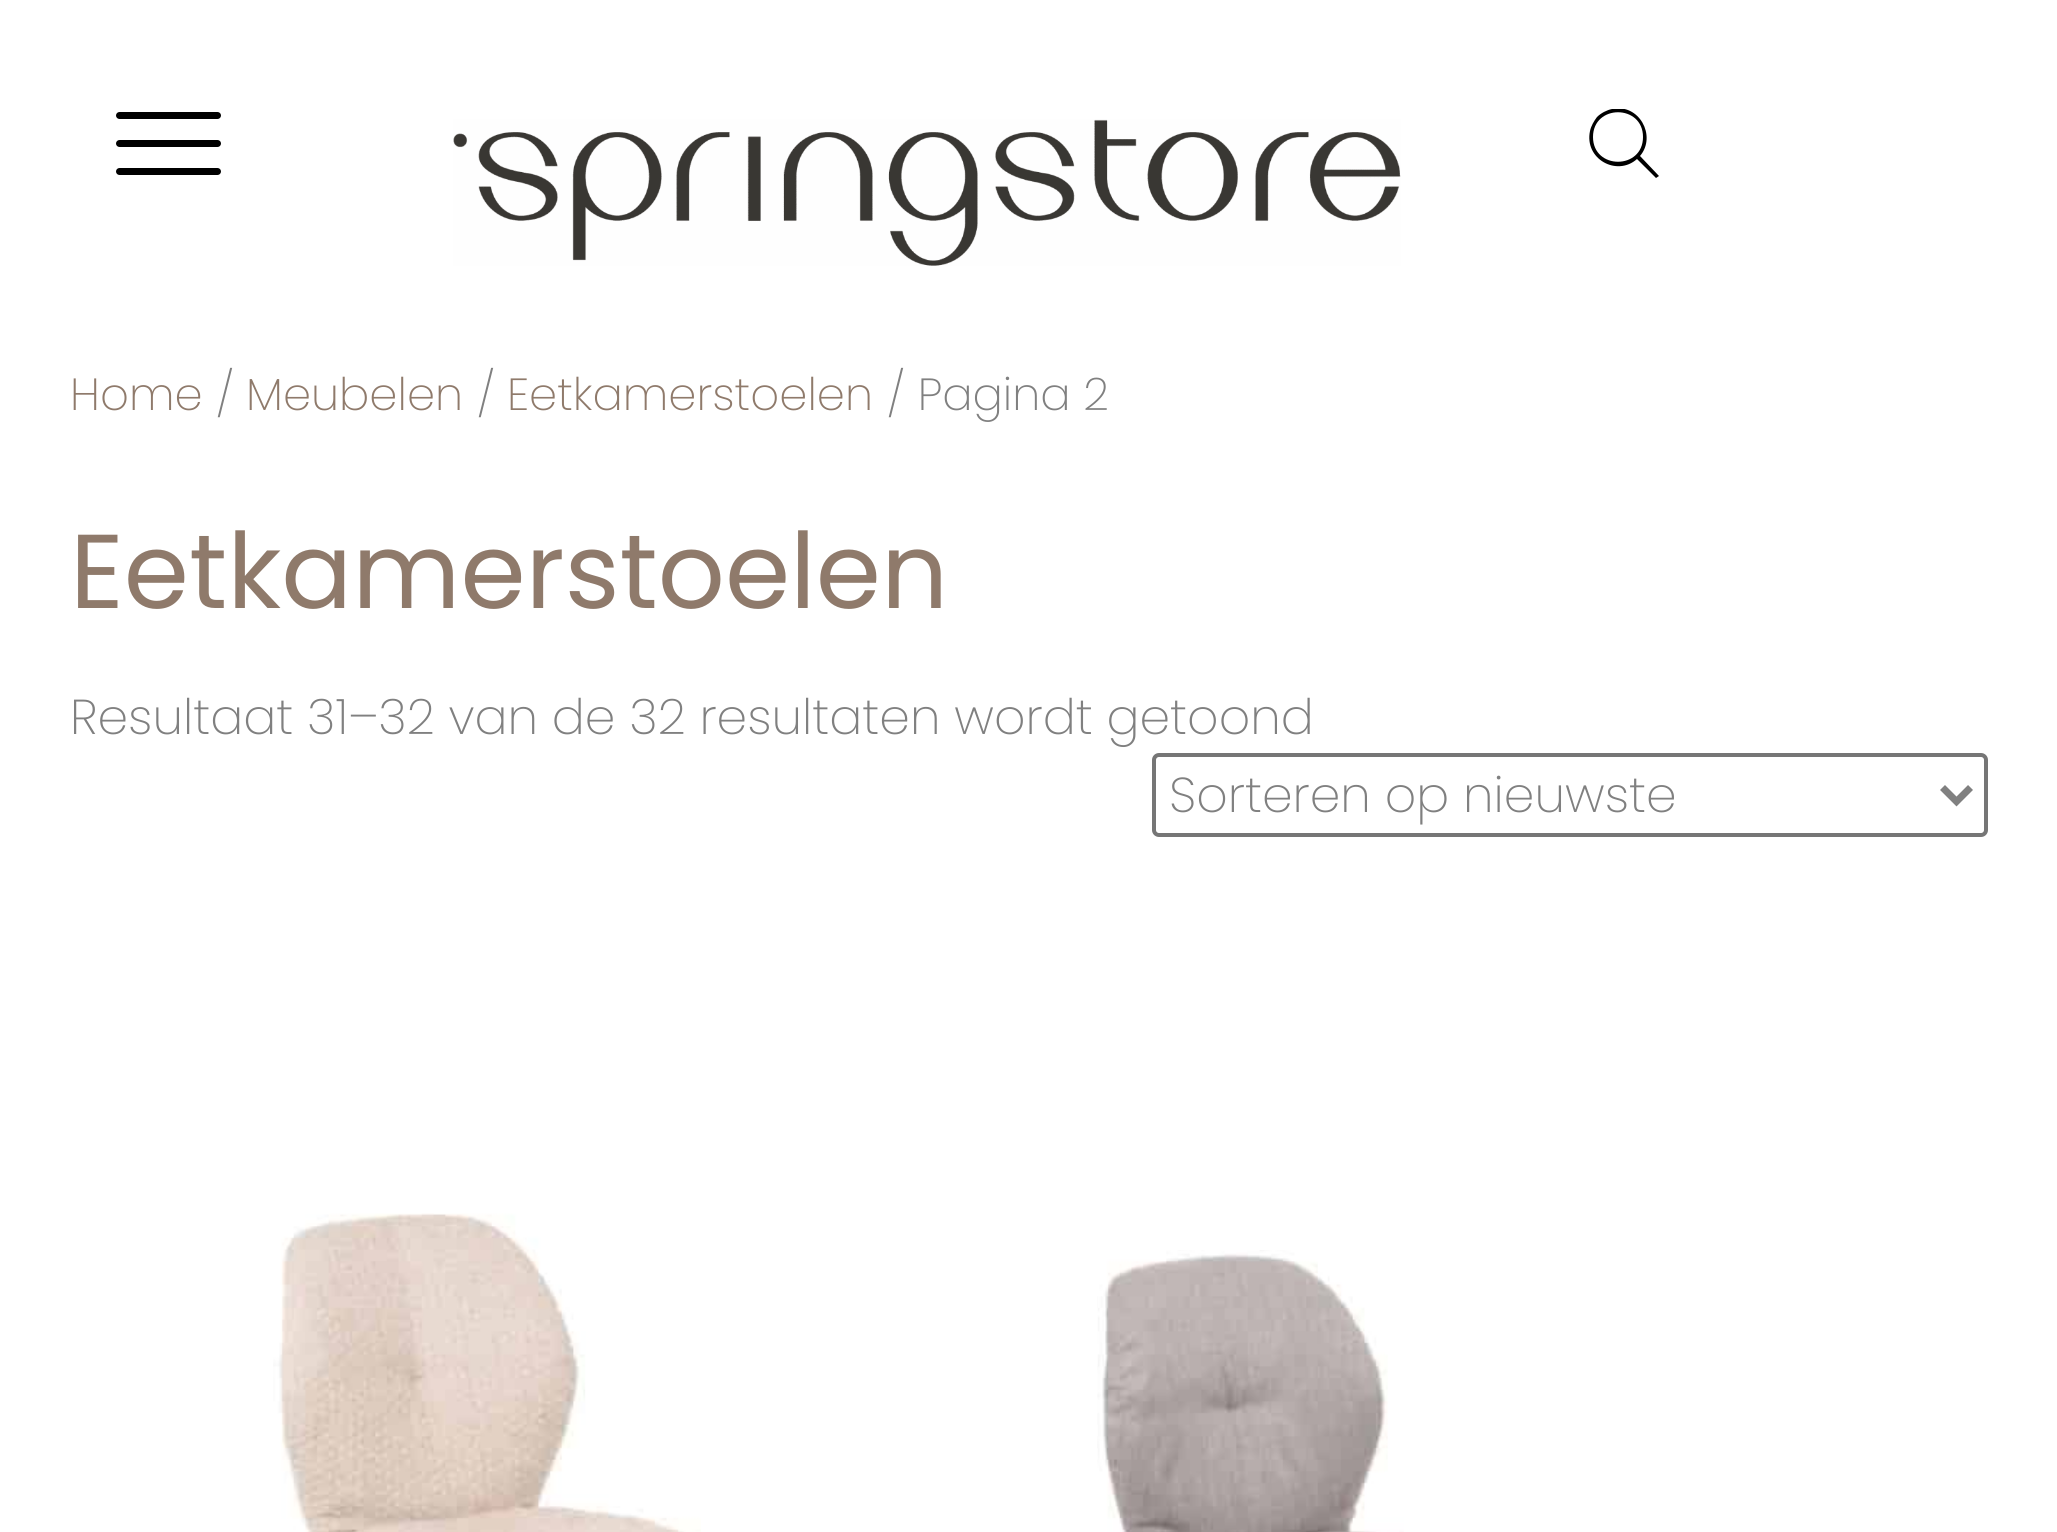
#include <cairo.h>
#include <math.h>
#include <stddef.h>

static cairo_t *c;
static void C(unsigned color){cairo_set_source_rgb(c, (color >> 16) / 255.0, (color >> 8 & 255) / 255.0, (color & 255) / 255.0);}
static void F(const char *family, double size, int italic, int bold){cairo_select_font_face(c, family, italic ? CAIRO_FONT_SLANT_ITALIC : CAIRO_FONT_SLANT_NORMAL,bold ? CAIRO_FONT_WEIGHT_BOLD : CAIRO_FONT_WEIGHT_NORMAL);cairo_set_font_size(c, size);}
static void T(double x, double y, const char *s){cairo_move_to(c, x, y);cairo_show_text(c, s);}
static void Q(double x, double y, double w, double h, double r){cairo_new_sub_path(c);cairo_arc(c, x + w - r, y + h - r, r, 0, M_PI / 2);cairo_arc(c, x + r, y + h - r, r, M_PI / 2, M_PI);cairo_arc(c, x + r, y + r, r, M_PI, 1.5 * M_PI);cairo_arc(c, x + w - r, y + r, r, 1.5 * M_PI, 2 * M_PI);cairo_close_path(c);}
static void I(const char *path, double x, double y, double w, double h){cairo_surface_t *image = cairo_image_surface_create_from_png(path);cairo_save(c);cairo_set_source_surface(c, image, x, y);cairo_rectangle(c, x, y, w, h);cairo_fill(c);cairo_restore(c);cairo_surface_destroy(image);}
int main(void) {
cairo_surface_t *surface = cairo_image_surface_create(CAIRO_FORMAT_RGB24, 2057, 1532);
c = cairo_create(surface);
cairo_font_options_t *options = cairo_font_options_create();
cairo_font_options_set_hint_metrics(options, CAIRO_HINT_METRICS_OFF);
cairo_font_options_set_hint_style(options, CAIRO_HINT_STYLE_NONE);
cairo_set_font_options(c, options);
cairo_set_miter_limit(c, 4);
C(0xffffff);
cairo_paint(c);
C(0x000000);
Q(116,140,105,7,3.5);
cairo_fill(c);
Q(116,112,105,7,3.5);
cairo_fill(c);
Q(116,168,105,7,3.5);
cairo_fill(c);
I("1.png",453,119,948,147);
cairo_save(c);
cairo_rectangle(c,1589,109,70,70);
cairo_clip(c);
cairo_new_path(c);
cairo_move_to(c,1659,176);
cairo_line_to(c,1640,156);
cairo_curve_to(c,1657,136,1639,103,1612,109);
cairo_curve_to(c,1607,110,1601,113,1597,117);
cairo_curve_to(c,1594,121,1591,126,1590,131);
cairo_curve_to(c,1584,159,1617,177,1637,159);
cairo_line_to(c,1656,178);
cairo_close_path(c);
cairo_move_to(c,1593,137);
cairo_curve_to(c,1593,104,1643,104,1643,137);
cairo_curve_to(c,1643,170,1593,170,1593,137);
cairo_close_path(c);
cairo_fill(c);
cairo_restore(c);
F("Poppins ExtraLight",45,0,0);
C(0x8f7a6b);
T(70,410,"Home");
C(0x808080);
T(216,410,"/");
C(0x8f7a6b);
T(246,410,"Meubelen");
C(0x808080);
T(477,410,"/");
C(0x8f7a6b);
T(507,410,"Eetkamerstoelen");
C(0x808080);
T(887,410,"/ Pagina 2");
F("Poppins",105,0,0);
C(0x8f7a6b);
T(70,608,"Eetkamerstoelen");
F("Poppins ExtraLight",49,0,0);
C(0x808080);
T(70,734,"Resultaat 31–32 van de 32 resultaten wordt getoond");
Q(1154,755,832,80,5);
C(0x767676);
cairo_set_line_width(c,4);
cairo_stroke(c);
cairo_new_path(c);
cairo_move_to(c,1942.5,787.5);
cairo_line_to(c,1956.5,801.5);
cairo_line_to(c,1970.5,787.5);
C(0x808080);
cairo_set_line_width(c,7);
cairo_stroke(c);
T(1169,812,"Sorteren op nieuwste");
I("2.png",273,1213,428,319);
I("3.png",1097,1250,307,282);
cairo_surface_write_to_png(surface, "o.png");
cairo_font_options_destroy(options);
cairo_destroy(c);
cairo_surface_destroy(surface);
return 0;
}
